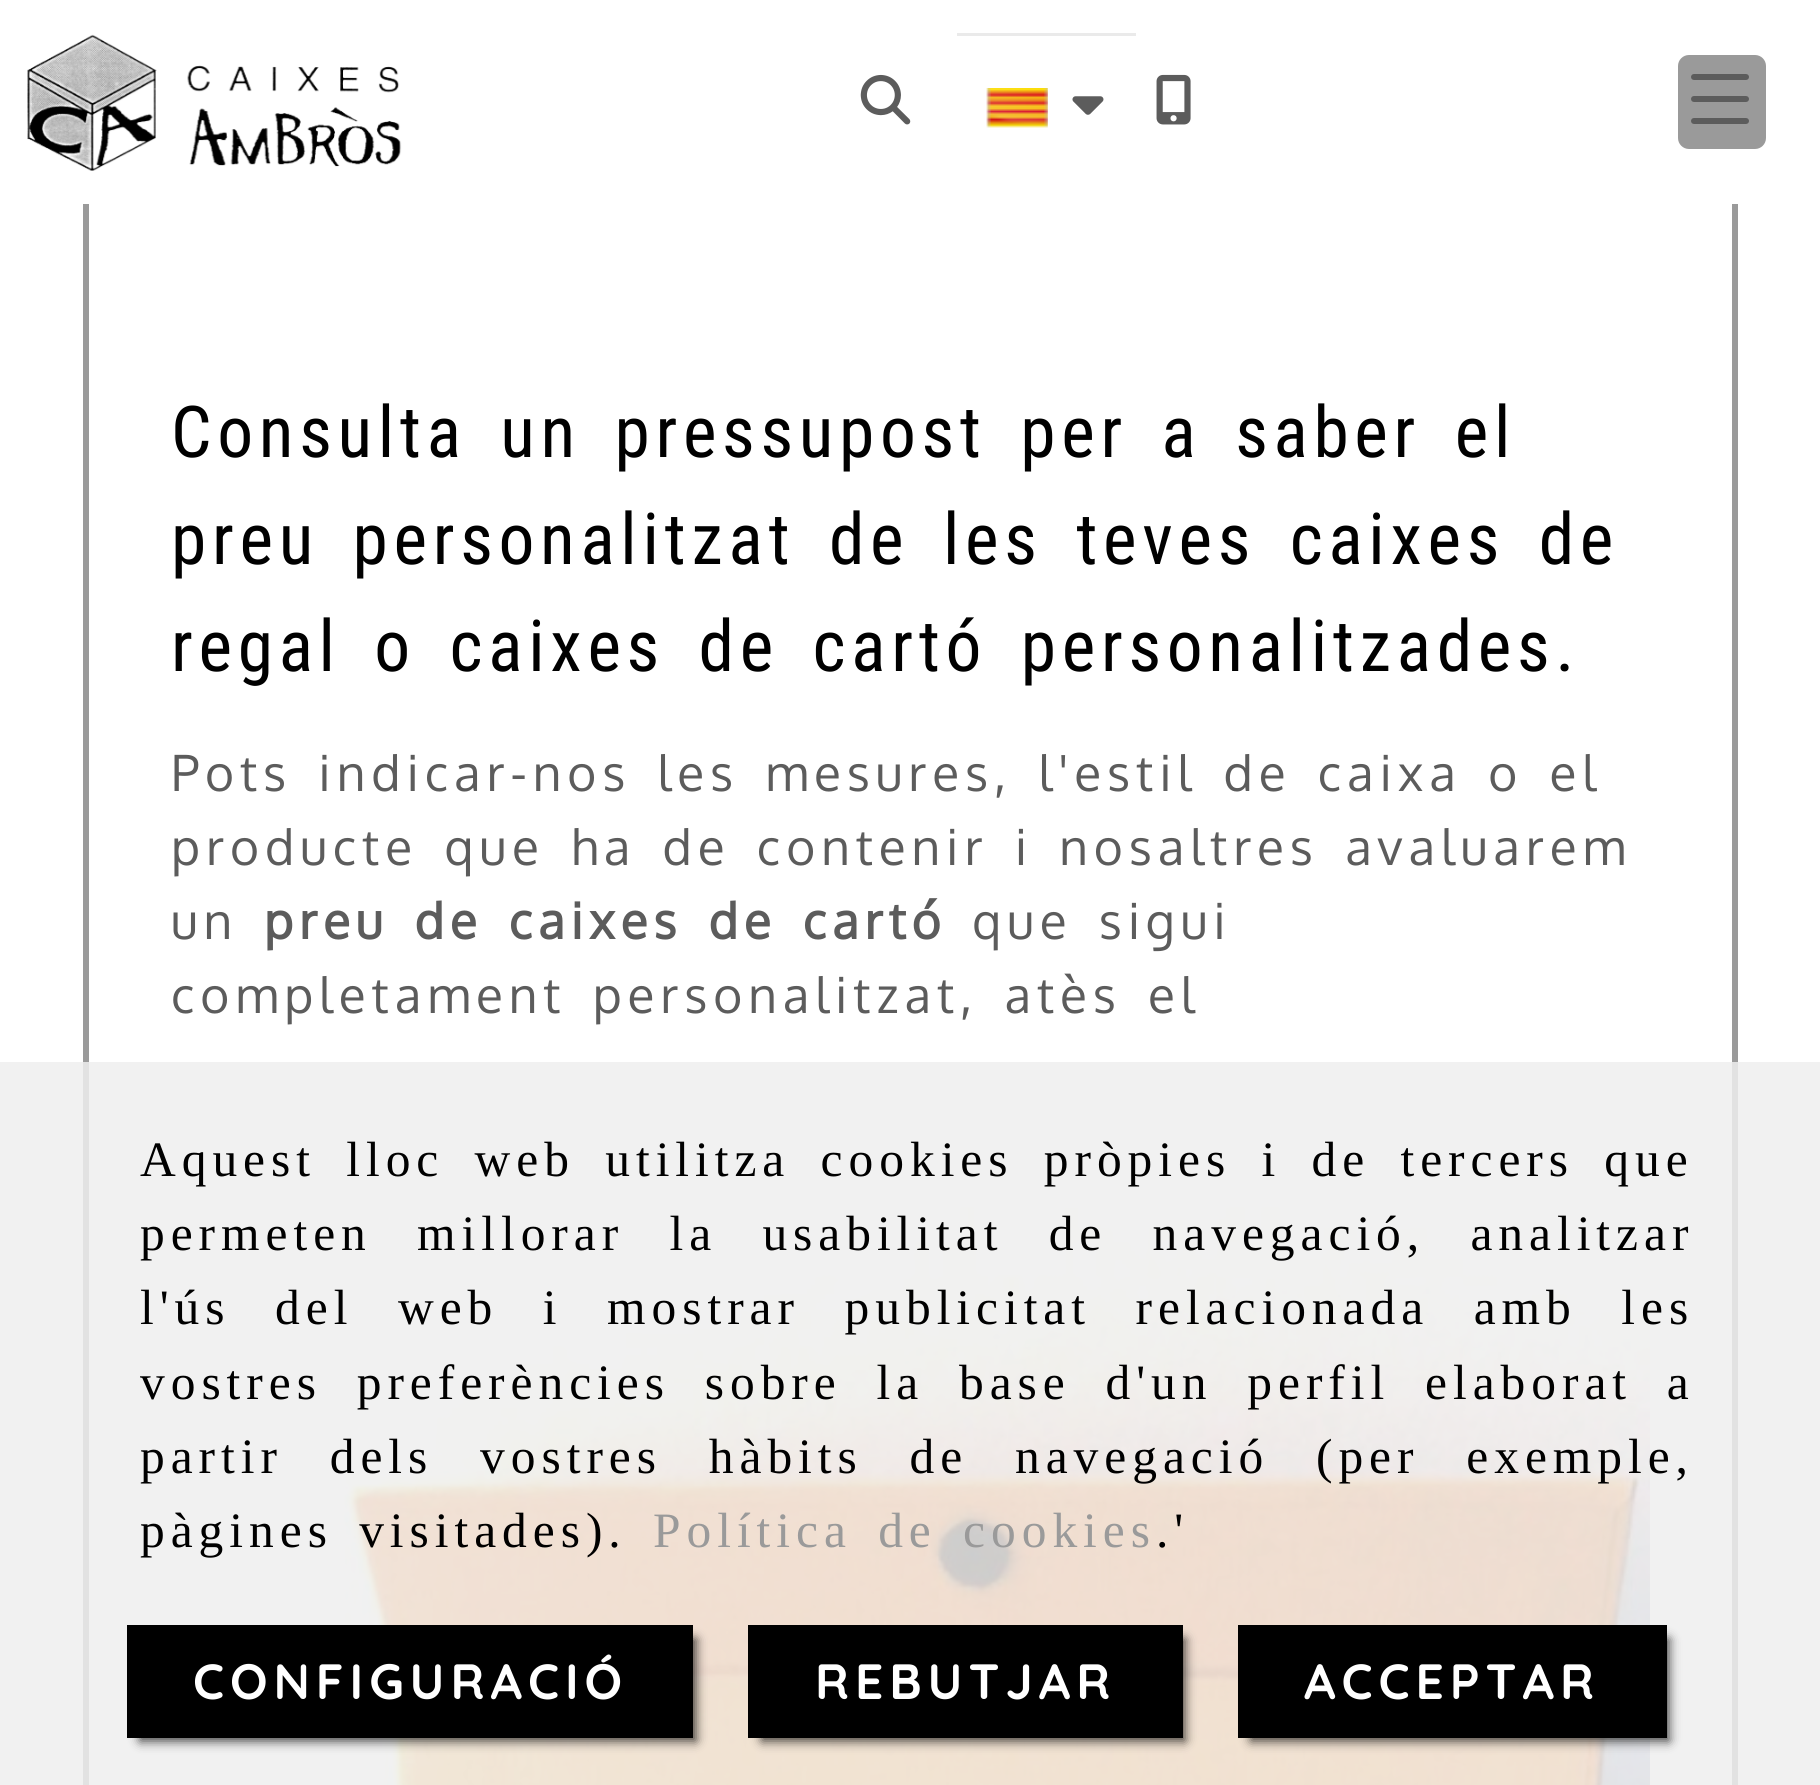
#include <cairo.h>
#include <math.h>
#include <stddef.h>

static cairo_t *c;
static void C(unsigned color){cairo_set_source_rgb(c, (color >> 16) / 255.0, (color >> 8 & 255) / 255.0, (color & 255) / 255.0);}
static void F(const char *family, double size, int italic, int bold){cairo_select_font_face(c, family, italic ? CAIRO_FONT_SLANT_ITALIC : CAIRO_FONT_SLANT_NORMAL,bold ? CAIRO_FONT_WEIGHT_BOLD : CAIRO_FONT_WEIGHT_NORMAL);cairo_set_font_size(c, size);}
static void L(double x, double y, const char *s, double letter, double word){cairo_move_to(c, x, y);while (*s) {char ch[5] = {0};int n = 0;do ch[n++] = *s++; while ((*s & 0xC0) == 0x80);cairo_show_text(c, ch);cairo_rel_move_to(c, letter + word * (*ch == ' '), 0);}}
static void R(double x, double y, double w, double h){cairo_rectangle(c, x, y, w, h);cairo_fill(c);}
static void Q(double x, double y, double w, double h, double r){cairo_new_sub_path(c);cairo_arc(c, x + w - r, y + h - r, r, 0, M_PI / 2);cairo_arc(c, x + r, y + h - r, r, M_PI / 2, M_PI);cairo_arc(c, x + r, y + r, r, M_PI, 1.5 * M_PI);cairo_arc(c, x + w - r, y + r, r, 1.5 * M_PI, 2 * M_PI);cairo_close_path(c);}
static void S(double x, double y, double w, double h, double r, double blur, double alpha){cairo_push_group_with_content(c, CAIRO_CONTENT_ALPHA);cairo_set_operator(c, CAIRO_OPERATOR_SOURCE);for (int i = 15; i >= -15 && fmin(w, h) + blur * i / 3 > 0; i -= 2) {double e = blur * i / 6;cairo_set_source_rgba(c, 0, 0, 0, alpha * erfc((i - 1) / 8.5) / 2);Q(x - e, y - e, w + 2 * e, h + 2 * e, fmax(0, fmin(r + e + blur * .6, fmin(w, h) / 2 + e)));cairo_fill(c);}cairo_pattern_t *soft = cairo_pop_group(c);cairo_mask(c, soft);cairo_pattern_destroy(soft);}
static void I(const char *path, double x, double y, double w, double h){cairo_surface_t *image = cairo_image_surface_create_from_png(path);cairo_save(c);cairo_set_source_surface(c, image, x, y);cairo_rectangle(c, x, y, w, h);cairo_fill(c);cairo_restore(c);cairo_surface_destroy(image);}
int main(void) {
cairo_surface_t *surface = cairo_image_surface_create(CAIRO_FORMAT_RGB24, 1820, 1785);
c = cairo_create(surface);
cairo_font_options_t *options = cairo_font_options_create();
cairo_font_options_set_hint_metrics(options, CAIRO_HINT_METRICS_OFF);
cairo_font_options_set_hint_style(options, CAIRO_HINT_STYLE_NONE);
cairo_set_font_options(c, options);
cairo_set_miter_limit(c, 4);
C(0xffffff);
cairo_paint(c);
cairo_rectangle(c,86,61,1649,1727);
C(0x9a9a9a);
cairo_set_line_width(c,6);
cairo_stroke(c);
C(0xffffff);
R(83,58,1655,146);
I("1.png",27,34,375,137);
I("2.png",860,74,51,51);
C(0xeaeaea);
R(957,33,179,3);
I("3.png",986,88,62,40);
I("4.png",1072,96,32,19);
I("5.png",1156,74,35,51);
C(0x9a9a9a);
Q(1678,55,88,94,11);
cairo_fill(c);
C(0x5c5c5c);
Q(1691,96,58,6,3);
cairo_fill(c);
Q(1691,74,58,6,3);
cairo_fill(c);
Q(1691,118,58,6,3);
cairo_fill(c);
F("Roboto Condensed",71.5,0,0);
C(0x000000);
L(171,457,"Consulta un pressupost per a saber el",5.7,11.5);
L(171,564,"preu personalitzat de les teves caixes de",5.7,11.5);
L(171,671,"regal o caixes de cartó personalitzades.",5.7,11.5);
F("Oxygen",49.5,0,0);
C(0x5c5c5c);
L(171,791,"Pots indicar-nos les mesures, l'estil de caixa o el",5.95,8);
L(171,865,"producte que ha de contenir i nosaltres avaluarem",5.95,8);
L(171,939,"un",5.95,0);
F("Oxygen",49.5,0,1);
L(264,939,"preu de caixes de cartó",5.95,8);
F("Oxygen",49.5,0,0);
L(972,939,"que sigui",5.95,8);
L(171,1013,"completament personalitzat, atès el",5.95,8);
I("6.png",344,1207,1306,578);
cairo_set_source_rgba(c,0.933,0.933,0.933,0.85);
R(0,1062,1820,723);
F("Liberation Serif",49.5,0,0);
C(0x000000);
L(140,1176,"Aquest lloc web utilitza cookies pròpies i de tercers que",5.95,12);
L(140,1250,"permeten millorar la usabilitat de navegació, analitzar",5.95,27);
L(140,1324,"l'ús del web i mostrar publicitat relacionada amb les",5.95,26.25);
L(140,1399,"vostres preferències sobre la base d'un perfil elaborat a",5.95,16.5);
L(140,1473,"partir dels vostres hàbits de navegació (per exemple,",5.95,28.5);
L(140,1547,"pàgines visitades).",5.95,8);
C(0x9a9a9a);
L(653,1547,"Política de cookies",5.95,8);
C(0x000000);
L(1156,1547,".'",5.95,0);
C(0x000000);
S(140,1639,556,102,0,5.5,.75);
C(0x000000);
R(127,1625,566,113);
F("Quicksand",49.5,0,1);
C(0xffffff);
L(193,1699,"CONFIGURACIÓ",5.95,0);
C(0x000000);
S(762,1639,423,102,0,5.5,.75);
C(0x000000);
R(748,1625,435,113);
C(0xffffff);
L(815,1699,"REBUTJAR",5.95,0);
C(0x000000);
S(1251,1639,418,102,0,5.5,.75);
C(0x000000);
R(1238,1625,429,113);
C(0xffffff);
L(1304,1699,"ACCEPTAR",5.95,0);
cairo_surface_write_to_png(surface, "o.png");
cairo_font_options_destroy(options);
cairo_destroy(c);
cairo_surface_destroy(surface);
return 0;
}
